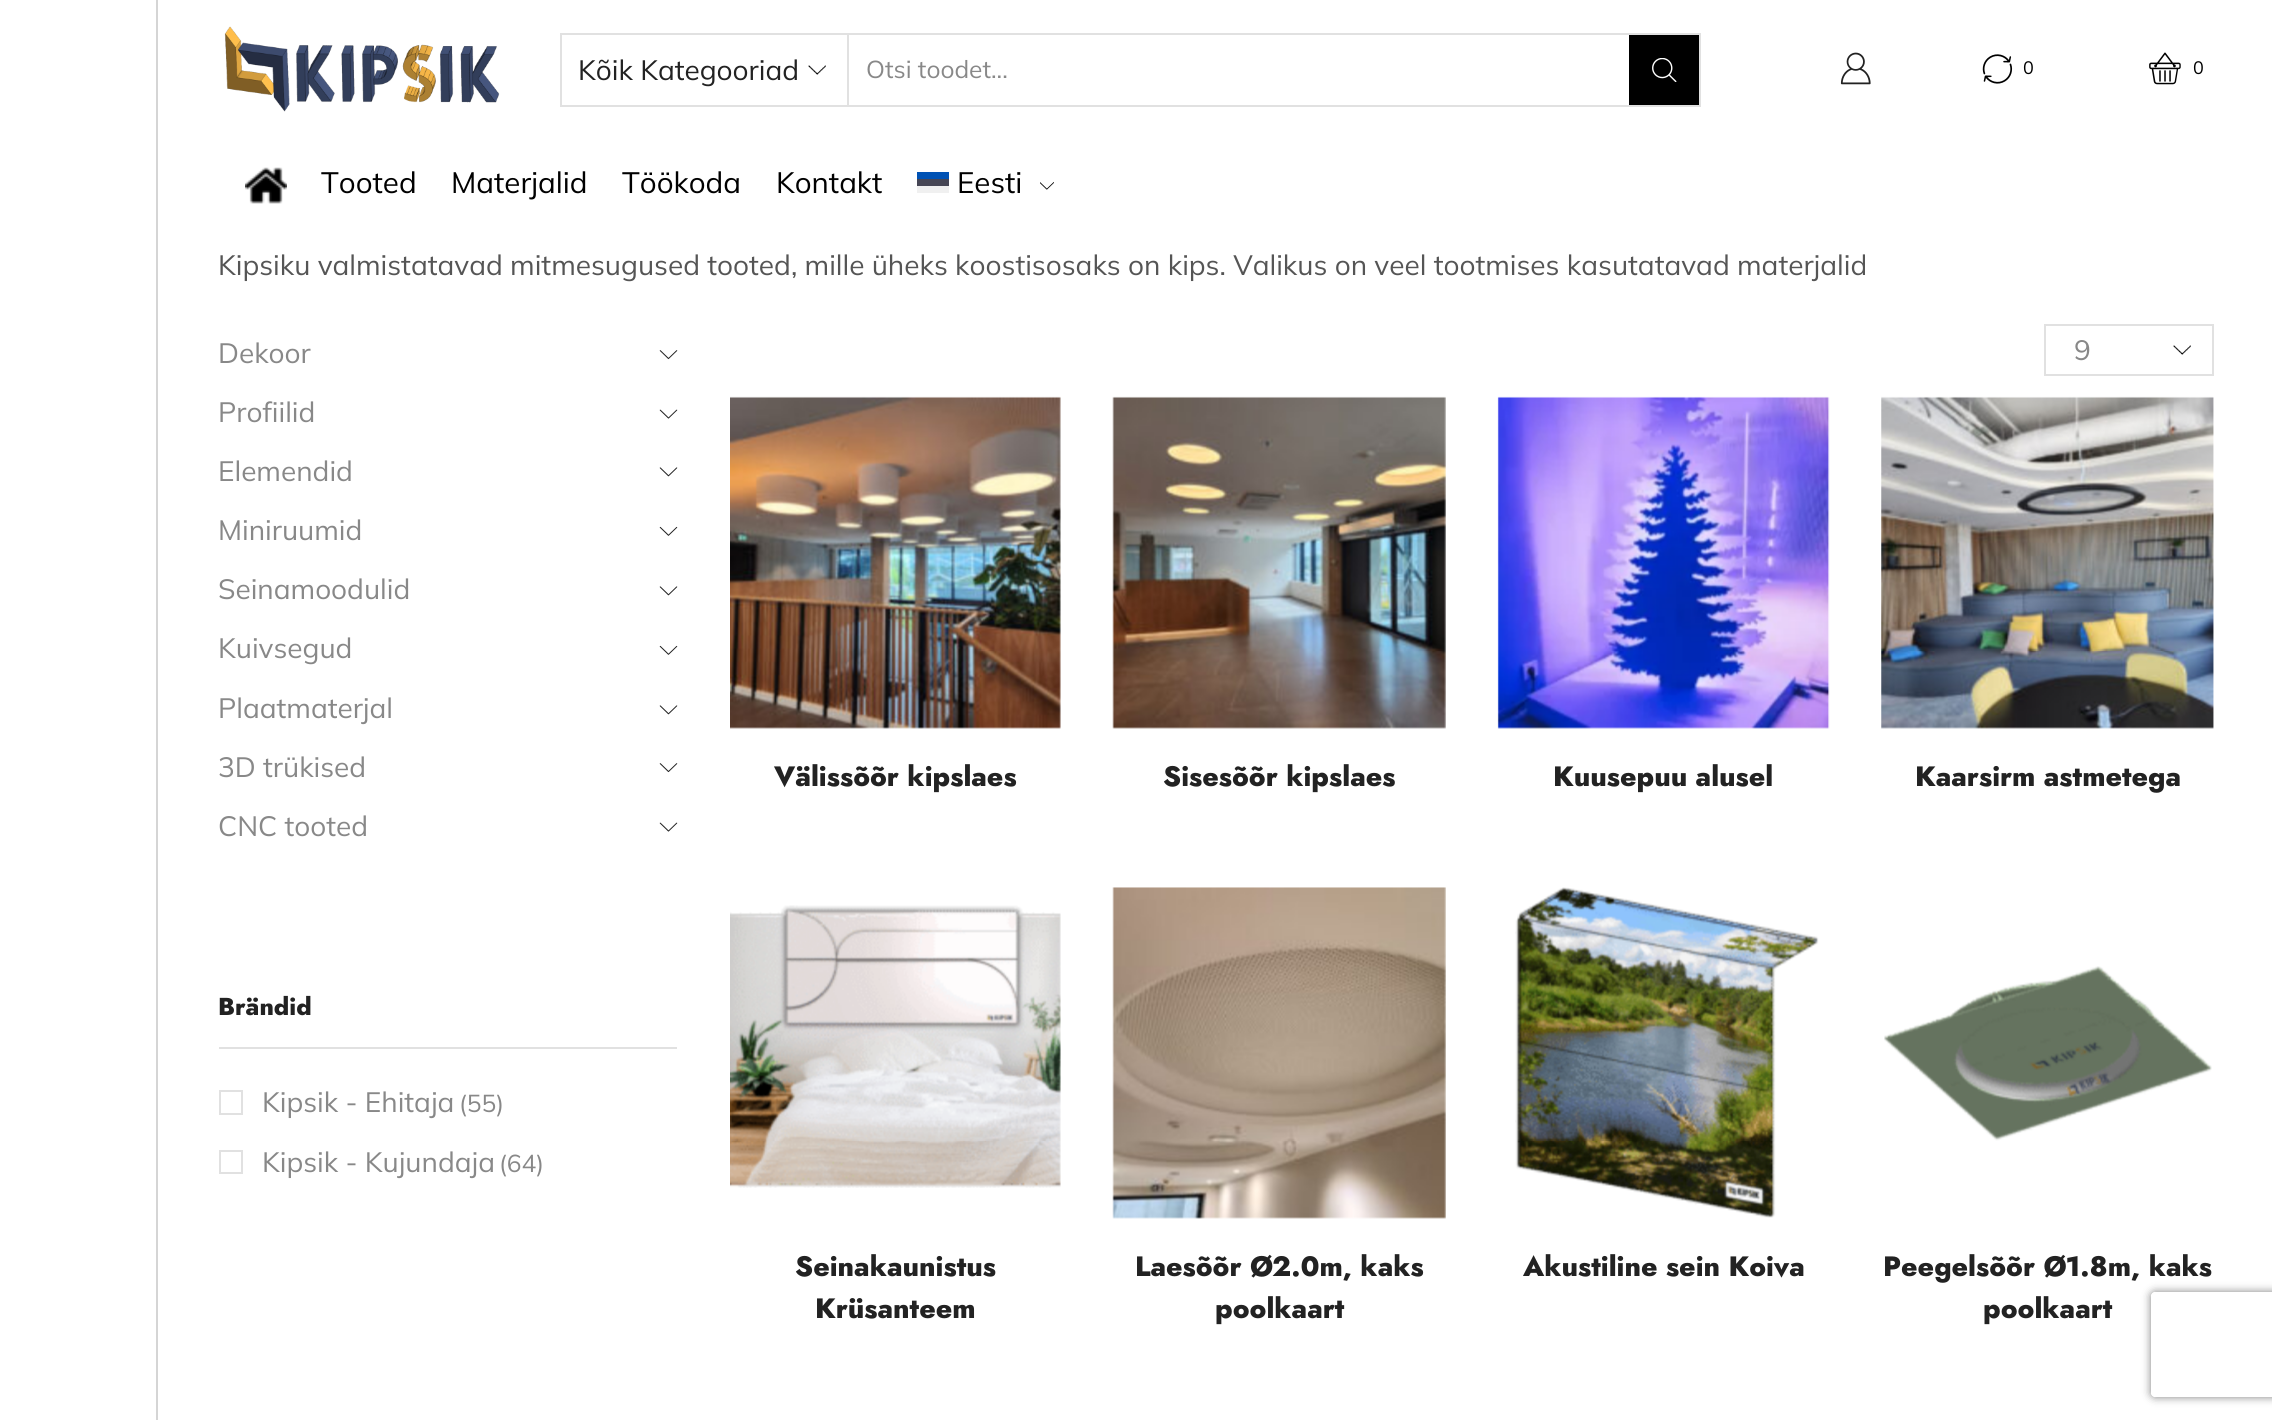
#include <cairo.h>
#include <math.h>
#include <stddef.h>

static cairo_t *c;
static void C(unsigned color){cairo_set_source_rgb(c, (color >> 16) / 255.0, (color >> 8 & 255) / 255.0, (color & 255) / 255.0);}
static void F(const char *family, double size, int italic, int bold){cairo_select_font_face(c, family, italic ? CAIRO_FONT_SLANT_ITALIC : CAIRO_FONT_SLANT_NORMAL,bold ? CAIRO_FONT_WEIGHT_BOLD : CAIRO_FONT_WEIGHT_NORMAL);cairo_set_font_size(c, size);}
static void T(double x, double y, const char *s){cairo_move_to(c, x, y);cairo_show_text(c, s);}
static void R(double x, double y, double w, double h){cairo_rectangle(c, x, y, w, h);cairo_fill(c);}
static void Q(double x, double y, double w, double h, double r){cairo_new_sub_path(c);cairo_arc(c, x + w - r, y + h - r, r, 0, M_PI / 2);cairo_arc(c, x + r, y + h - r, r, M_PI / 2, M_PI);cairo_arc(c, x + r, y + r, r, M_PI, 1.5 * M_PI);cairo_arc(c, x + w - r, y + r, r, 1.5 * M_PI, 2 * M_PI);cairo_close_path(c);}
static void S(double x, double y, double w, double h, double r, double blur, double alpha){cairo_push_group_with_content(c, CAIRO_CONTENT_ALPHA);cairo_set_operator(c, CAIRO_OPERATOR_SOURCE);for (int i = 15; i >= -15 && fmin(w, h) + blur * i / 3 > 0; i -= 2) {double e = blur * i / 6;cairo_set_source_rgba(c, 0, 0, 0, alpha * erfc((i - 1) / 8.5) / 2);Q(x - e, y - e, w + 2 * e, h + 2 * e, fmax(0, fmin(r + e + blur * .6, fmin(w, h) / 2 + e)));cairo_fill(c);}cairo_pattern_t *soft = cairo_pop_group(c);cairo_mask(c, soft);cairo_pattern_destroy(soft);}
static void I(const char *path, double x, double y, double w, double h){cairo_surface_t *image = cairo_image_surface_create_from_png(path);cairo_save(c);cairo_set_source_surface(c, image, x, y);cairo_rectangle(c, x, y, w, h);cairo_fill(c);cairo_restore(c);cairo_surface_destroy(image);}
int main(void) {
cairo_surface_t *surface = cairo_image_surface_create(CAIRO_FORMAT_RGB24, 2272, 1420);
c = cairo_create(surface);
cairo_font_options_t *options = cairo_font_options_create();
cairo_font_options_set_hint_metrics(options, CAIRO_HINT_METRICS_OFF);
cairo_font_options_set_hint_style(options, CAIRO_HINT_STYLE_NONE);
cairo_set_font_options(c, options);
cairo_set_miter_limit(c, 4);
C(0xffffff);
cairo_paint(c);
C(0xd5d5d5);
R(156,0,2,1420);
I("1.png",224,26,276,86);
cairo_rectangle(c,561,34,1139,72);
C(0xe1e1e1);
cairo_stroke(c);
I("2.png",808,65,18,10);
R(847,35,2,70);
F("Mulish",28,0,0);
C(0x222222);
T(578,80,"Kõik Kategooriad");
F("Mulish",24.5,0,0);
C(0x888888);
T(866,78,"Otsi toodet...");
C(0x000000);
R(1629,35,70,70);
I("3.png",1652,58,25,24);
I("4.png",1840,52,31,33);
I("5.png",1982,54,31,30);
F("Mulish",18,0,0);
T(2023,74,"0");
I("6.png",2149,52,32,33);
T(2193,74,"0");
I("7.png",245,167,42,37);
F("Mulish",29.5,0,0);
T(321,193,"Tooted");
T(451,193,"Materjalid");
T(622,193,"Töökoda");
T(776,193,"Kontakt");
C(0x0052b4);
R(917,172,32,7);
C(0x000000);
T(957,193,"Eesti");
C(0x464655);
R(917,179,32,7);
I("8.png",1040,182,14,8);
C(0xf0f0f0);
R(917,186,32,7);
F("Mulish",28,0,0);
C(0x555555);
T(218,275,"Kipsiku valmistatavad mitmesugused tooted, mille üheks koostisosaks on kips. Valikus on veel tootmises kasutatavad materjalid");
C(0x888888);
T(218,363,"Dekoor");
I("9.png",659,350,19,10);
T(218,422,"Profiilid");
I("10.png",659,409,19,10);
T(218,481,"Elemendid");
I("11.png",659,467,19,10);
T(218,540,"Miniruumid");
I("12.png",659,526,19,10);
T(218,599,"Seinamoodulid");
I("11.png",659,586,19,10);
T(218,658,"Kuivsegud");
I("12.png",659,645,19,10);
T(218,718,"Plaatmaterjal");
I("11.png",659,705,19,10);
T(218,777,"3D trükised");
I("9.png",659,763,19,10);
T(218,836,"CNC tooted");
I("10.png",659,822,19,10);
C(0xe1e1e1);
R(219,1047,458,2);
F("Jost ExtraBold",24.5,0,0);
C(0x222222);
T(218,1015,"Brändid");
cairo_rectangle(c,220,1091,22,23);
C(0xe1e1e1);
cairo_stroke(c);
F("Mulish",28,0,0);
C(0x888888);
T(262,1112,"Kipsik - Ehitaja");
F("Mulish",24.5,0,0);
T(459,1112,"(55)");
cairo_rectangle(c,220,1151,22,22);
C(0xe1e1e1);
cairo_stroke(c);
F("Mulish",28,0,0);
C(0x888888);
T(262,1172,"Kipsik - Kujundaja");
F("Mulish",24.5,0,0);
T(499,1172,"(64)");
I("13.png",2173,345,18,10);
cairo_rectangle(c,2045,325,168,50);
C(0xe1e1e1);
cairo_stroke(c);
F("Mulish",28,0,0);
C(0x888888);
T(2074,360,"9");
I("14.png",730,396,331,333);
F("Jost ExtraBold",28,0,0);
C(0x222222);
T(774,786,"Välissõõr kipslaes");
I("15.png",1112,396,334,333);
T(1163,786,"Sisesõõr kipslaes");
I("16.png",1497,396,333,333);
T(1553,786,"Kuusepuu alusel");
I("17.png",1881,396,333,333);
T(1915,786,"Kaarsirm astmetega");
I("18.png",730,905,331,283);
T(795,1276,"Seinakaunistus");
T(815,1318,"Krüsanteem");
I("19.png",1112,887,334,332);
T(1135,1276,"Laesõõr Ø2.0m, kaks");
T(1215,1318,"poolkaart");
I("20.png",1515,887,304,331);
T(1523,1276,"Akustiline sein Koiva");
I("21.png",1884,966,328,175);
cairo_save(c);
cairo_set_fill_rule(c,CAIRO_FILL_RULE_EVEN_ODD);
cairo_new_path(c);
cairo_move_to(c,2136,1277);
cairo_line_to(c,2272,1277);
cairo_line_to(c,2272,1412);
cairo_line_to(c,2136,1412);
cairo_close_path(c);
cairo_move_to(c,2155,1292);
cairo_line_to(c,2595,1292);
cairo_curve_to(c,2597,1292,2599,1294,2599,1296);
cairo_line_to(c,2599,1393);
cairo_curve_to(c,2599,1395,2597,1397,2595,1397);
cairo_line_to(c,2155,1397);
cairo_curve_to(c,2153,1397,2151,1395,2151,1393);
cairo_line_to(c,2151,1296);
cairo_curve_to(c,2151,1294,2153,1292,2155,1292);
cairo_close_path(c);
cairo_clip(c);
C(0x808080);
S(2151,1292,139,105,4,4.5,1);
cairo_restore(c);
T(1883,1276,"Peegelsõõr Ø1.8m, kaks");
T(1983,1318,"poolkaart");
cairo_surface_write_to_png(surface, "o.png");
cairo_font_options_destroy(options);
cairo_destroy(c);
cairo_surface_destroy(surface);
return 0;
}
